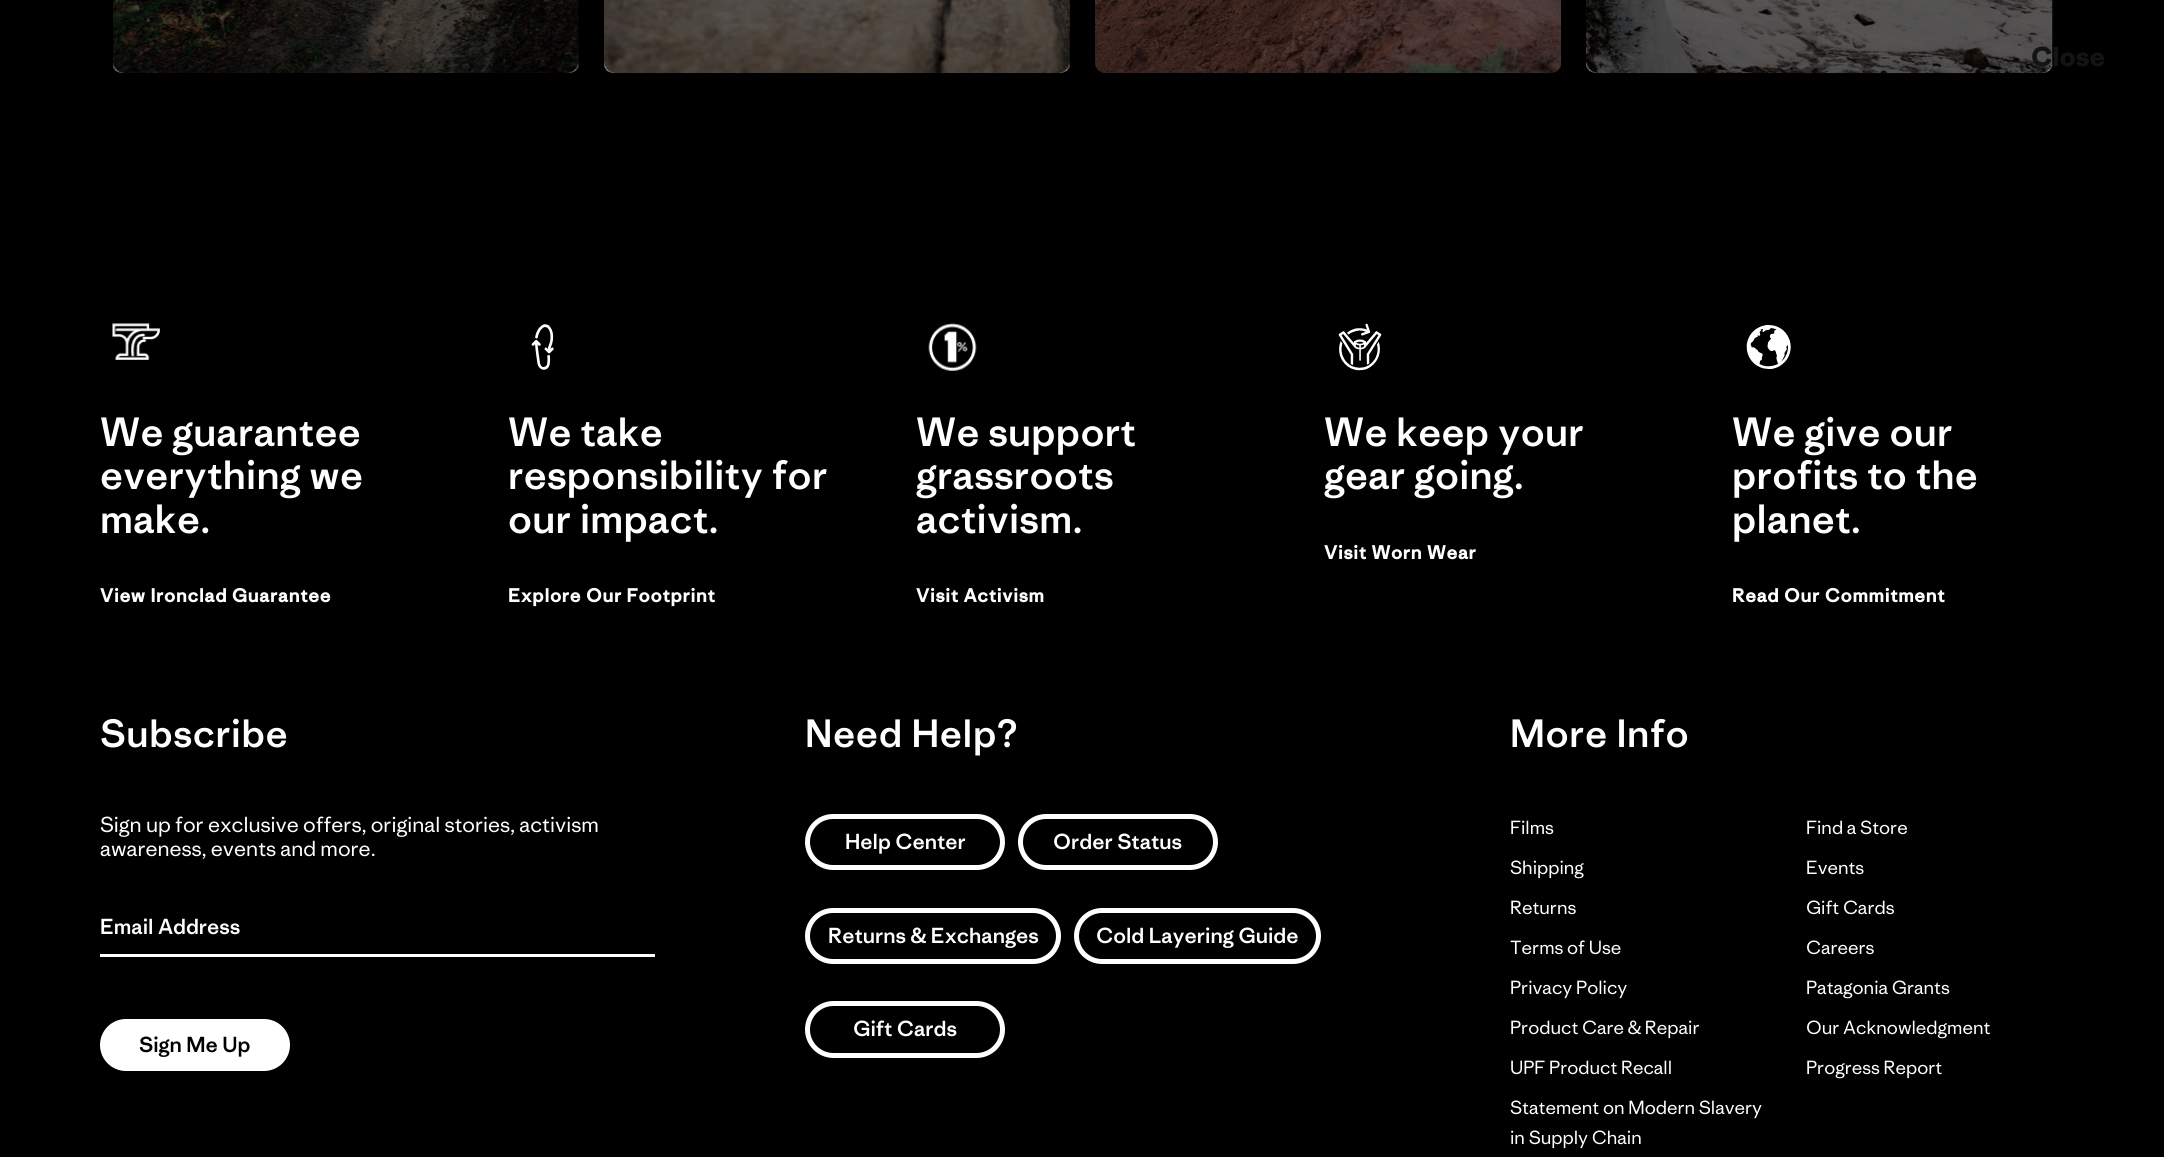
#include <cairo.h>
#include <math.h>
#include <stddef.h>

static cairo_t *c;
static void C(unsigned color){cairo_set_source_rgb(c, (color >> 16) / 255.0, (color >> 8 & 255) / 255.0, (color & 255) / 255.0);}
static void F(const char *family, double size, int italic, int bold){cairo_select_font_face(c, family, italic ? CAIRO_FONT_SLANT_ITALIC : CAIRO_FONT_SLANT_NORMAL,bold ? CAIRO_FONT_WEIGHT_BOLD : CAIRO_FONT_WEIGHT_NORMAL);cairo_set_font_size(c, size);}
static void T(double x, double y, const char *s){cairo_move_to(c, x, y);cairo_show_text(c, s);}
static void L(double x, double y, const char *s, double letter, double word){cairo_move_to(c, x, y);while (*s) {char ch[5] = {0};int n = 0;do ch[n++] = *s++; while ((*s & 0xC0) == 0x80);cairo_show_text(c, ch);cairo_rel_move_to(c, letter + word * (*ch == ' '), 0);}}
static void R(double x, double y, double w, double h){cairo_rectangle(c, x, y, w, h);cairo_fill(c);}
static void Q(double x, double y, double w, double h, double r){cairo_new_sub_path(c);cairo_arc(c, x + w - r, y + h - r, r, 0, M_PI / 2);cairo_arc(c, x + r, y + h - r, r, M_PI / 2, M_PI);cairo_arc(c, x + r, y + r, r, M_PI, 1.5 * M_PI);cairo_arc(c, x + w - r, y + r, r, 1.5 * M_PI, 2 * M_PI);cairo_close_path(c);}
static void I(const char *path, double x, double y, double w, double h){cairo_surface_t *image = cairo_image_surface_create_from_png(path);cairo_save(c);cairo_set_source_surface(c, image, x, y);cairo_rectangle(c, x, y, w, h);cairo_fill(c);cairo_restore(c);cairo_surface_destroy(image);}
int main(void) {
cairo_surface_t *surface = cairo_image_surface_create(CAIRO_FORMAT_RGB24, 2164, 1157);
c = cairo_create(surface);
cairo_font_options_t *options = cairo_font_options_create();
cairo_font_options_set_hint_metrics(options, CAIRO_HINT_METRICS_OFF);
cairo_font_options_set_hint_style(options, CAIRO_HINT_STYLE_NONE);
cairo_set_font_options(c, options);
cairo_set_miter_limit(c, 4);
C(0x000000);
cairo_paint(c);
I("1.png",113,0,467,73);
I("2.png",604,0,467,74);
I("3.png",1095,0,467,74);
I("4.png",1586,0,467,74);
F("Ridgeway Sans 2",25,0,1);
C(0x141414);
T(2031,66,"Close");
I("5.png",112,323,48,37);
F("Ridgeway Sans 2 Medium",37.5,0,0);
C(0xffffff);
L(100,446,"We guarantee",.25,0);
L(100,489,"everything we",.25,0);
L(100,533,"make.",.25,0);
F("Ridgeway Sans",17.5,0,1);
L(100,602,"View Ironclad Guarantee",.75,0);
I("6.png",531,324,23,46);
F("Ridgeway Sans 2 Medium",37.5,0,0);
L(508,446,"We take",.25,0);
L(508,489,"responsibility for",.25,0);
L(508,533,"our impact.",.25,0);
F("Ridgeway Sans",17.5,0,1);
L(508,602,"Explore Our Footprint",.75,0);
I("7.png",928,323,49,48);
F("Ridgeway Sans 2 Medium",37.5,0,0);
L(916,446,"We support",.25,0);
L(916,489,"grassroots",.25,0);
L(916,533,"activism.",.25,0);
F("Ridgeway Sans",17.5,0,1);
L(916,602,"Visit Activism",.75,0);
I("8.png",1338,323,44,48);
F("Ridgeway Sans 2 Medium",37.5,0,0);
L(1324,446,"We keep your",.25,0);
L(1324,489,"gear going.",.25,0);
F("Ridgeway Sans",17.5,0,1);
L(1324,559,"Visit Worn Wear",.75,0);
I("9.png",1746,325,45,44);
F("Ridgeway Sans 2 Medium",37.5,0,0);
L(1732,446,"We give our",.25,0);
L(1732,489,"profits to the",.25,0);
L(1732,533,"planet.",.25,0);
F("Ridgeway Sans",17.5,0,1);
L(1732,602,"Read Our Commitment",.75,0);
F("Ridgeway Sans Medium",36.25,0,0);
L(100,747,"Subscribe",.6,0);
F("Ridgeway Sans",20,0,0);
T(100,832,"Sign up for exclusive offers, original stories, activism");
T(100,856,"awareness, events and more.");
F("Ridgeway Sans 2 Medium",20,0,0);
T(100,934,"Email Address");
R(100,954,555,3);
Q(100,1019,190,52,26);
cairo_fill(c);
C(0x000000);
T(139,1052,"Sign Me Up");
F("Ridgeway Sans Medium",36.25,0,0);
C(0xffffff);
L(805,747,"Need Help?",.6,0);
Q(807.5,816.5,195,51,25.5);
cairo_set_line_width(c,5);
cairo_stroke(c);
F("Ridgeway Sans 2 Medium",20,0,0);
T(845,849,"Help Center");
Q(1020.5,816.5,195,51,25.5);
cairo_stroke(c);
T(1053,849,"Order Status");
Q(807.5,910.5,251,51,25.5);
cairo_stroke(c);
T(828,943,"Returns & Exchanges");
Q(1076.5,910.5,242,51,25.5);
cairo_stroke(c);
T(1096,943,"Cold Layering Guide");
Q(807.5,1003.5,195,52,26);
cairo_stroke(c);
T(853,1036,"Gift Cards");
F("Ridgeway Sans Medium",36.25,0,0);
L(1510,747,"More Info",.6,0);
F("Ridgeway Sans",17.5,0,0);
T(1510,834,"Films");
T(1806,834,"Find a Store");
T(1510,874,"Shipping");
T(1806,874,"Events");
T(1510,914,"Returns");
T(1806,914,"Gift Cards");
T(1510,954,"Terms of Use");
T(1806,954,"Careers");
T(1510,994,"Privacy Policy");
T(1806,994,"Patagonia Grants");
T(1510,1034,"Product Care & Repair");
T(1806,1034,"Our Acknowledgment");
T(1510,1074,"UPF Product Recall");
T(1806,1074,"Progress Report");
T(1510,1114,"Statement on Modern Slavery");
T(1510,1144,"in Supply Chain");
cairo_surface_write_to_png(surface, "o.png");
cairo_font_options_destroy(options);
cairo_destroy(c);
cairo_surface_destroy(surface);
return 0;
}
